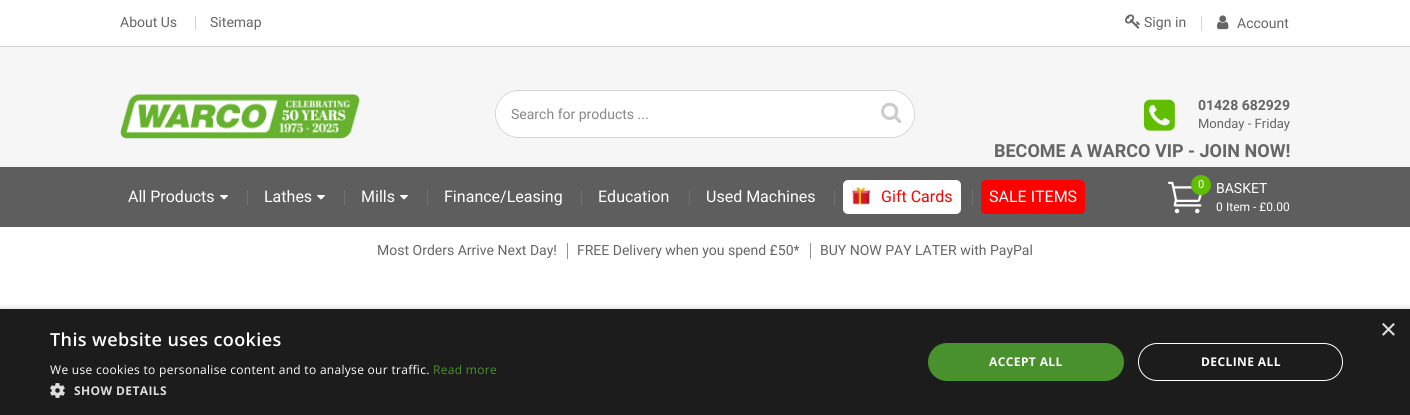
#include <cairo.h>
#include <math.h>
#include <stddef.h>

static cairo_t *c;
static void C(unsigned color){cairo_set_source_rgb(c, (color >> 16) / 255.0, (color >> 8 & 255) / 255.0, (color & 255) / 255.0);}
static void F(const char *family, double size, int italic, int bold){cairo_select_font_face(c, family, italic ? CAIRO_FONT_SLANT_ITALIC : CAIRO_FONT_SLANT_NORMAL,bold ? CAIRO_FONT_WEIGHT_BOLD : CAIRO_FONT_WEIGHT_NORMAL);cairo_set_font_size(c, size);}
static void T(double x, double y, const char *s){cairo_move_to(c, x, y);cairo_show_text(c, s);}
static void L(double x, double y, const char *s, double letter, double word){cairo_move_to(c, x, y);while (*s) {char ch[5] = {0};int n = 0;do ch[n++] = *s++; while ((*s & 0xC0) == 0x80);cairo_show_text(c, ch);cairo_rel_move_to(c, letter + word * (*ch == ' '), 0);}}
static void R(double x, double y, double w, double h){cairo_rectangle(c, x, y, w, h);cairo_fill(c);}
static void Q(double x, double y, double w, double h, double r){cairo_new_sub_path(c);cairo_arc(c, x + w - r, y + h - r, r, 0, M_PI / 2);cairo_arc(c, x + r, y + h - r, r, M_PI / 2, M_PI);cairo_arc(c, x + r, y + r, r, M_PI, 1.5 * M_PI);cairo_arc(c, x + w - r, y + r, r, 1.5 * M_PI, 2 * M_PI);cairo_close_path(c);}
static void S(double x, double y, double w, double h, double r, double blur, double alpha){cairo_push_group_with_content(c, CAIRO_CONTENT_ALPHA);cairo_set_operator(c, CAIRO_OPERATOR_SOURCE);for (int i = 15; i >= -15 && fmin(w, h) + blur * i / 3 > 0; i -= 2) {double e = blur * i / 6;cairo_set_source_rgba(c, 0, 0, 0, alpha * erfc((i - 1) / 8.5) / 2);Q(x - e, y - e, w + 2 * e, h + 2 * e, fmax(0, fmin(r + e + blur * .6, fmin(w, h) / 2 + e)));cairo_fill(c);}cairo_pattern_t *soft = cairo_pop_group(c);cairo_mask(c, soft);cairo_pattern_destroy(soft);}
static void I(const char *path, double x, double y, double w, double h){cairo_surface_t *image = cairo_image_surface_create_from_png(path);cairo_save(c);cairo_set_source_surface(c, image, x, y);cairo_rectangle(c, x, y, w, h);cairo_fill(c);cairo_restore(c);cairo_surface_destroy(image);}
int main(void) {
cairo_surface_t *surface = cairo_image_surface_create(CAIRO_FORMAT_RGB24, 1410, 415);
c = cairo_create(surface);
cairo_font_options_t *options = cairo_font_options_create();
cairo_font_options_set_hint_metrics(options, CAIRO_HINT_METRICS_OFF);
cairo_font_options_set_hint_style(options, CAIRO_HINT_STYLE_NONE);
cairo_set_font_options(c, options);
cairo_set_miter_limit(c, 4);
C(0xffffff);
cairo_paint(c);
C(0xf6f6f6);
R(0,47,1410,120);
C(0xd4d4d4);
R(0,46,1410,1);
R(195,16,1,14);
F("Heebo",14,0,0);
C(0x666666);
T(120,27,"About Us");
T(210,27,"Sitemap");
I("1.png",1125,14,15,15);
T(1144,27,"Sign in");
C(0xd4d4d4);
R(1201,16,1,15);
I("2.png",1217,15,12,15);
C(0x666666);
T(1237,28,"Account");
I("3.png",120,94,240,45);
Q(495.5,90.5,419,47,23.5);
C(0xd4d4d4);
cairo_set_line_width(c,1);
cairo_stroke(c);
C(0xffffff);
Q(496,91,418,46,23);
cairo_fill(c);
C(0x888888);
T(511,119,"Search for products ...");
I("4.png",881,102,21,21);
I("5.png",1144,99,31,32);
F("Heebo",14,0,1);
C(0x666666);
T(1198,110,"01428 682929");
F("Heebo",13,0,0);
T(1198,128,"Monday - Friday");
F("Heebo",18,0,1);
T(994,157,"BECOME A WARCO VIP - JOIN NOW!");
C(0x5e5e5e);
R(0,167,1410,60);
I("6.png",1168,181,35,33);
C(0x60bd00);
cairo_arc(c,1201,185,10,0,2 * M_PI);
cairo_fill(c);
F("Heebo",11,0,0);
C(0xffffff);
T(1198,188,"0");
F("Heebo",14,0,0);
T(1216,193,"BASKET");
F("Heebo",12,0,0);
T(1216,211,"0");
T(1226,211,"Item - £0.00");
F("Heebo",16,0,0);
T(128,202,"All Products");
I("7.png",220,195,8,5);
C(0x717171);
R(247,190,1,15);
C(0xffffff);
T(264,202,"Lathes");
I("7.png",317,195,8,5);
C(0x717171);
R(344,190,1,15);
C(0xffffff);
T(361,202,"Mills");
I("7.png",400,195,8,5);
C(0x717171);
R(427,190,1,15);
C(0xffffff);
T(444,202,"Finance/Leasing");
C(0x717171);
R(581,190,1,15);
C(0xffffff);
T(598,202,"Education");
C(0x717171);
R(689,190,1,15);
C(0xffffff);
T(706,202,"Used Machines");
C(0x717171);
R(834,190,1,15);
C(0xffffff);
Q(843,180,118,34,5);
cairo_fill(c);
I("8.png",851,187,20,18);
C(0xff0000);
T(881,202,"Gift Cards");
C(0x717171);
R(972,190,1,15);
C(0xff0000);
Q(981,180,104,34,5);
cairo_fill(c);
C(0xffffff);
T(989,202,"SALE ITEMS");
F("Heebo",14,0,0);
C(0x666666);
T(377,255,"Most Orders Arrive Next Day!");
C(0x949494);
R(567,243,1,16);
C(0x666666);
T(577,255,"FREE Delivery when you spend £50*");
C(0x949494);
R(810,243,1,16);
C(0x666666);
T(820,255,"BUY NOW PAY LATER with PayPal");
C(0x000000);
S(1,311,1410,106,0,4,.35);
C(0x1c1c1c);
R(0,309,1410,106);
F("Liberation Sans",29,0,0);
C(0xdddddd);
T(1380,339,"×");
F("Open Sans SemiBold",18,0,0);
C(0xffffff);
L(50,346,"This website uses cookies",.4,0);
F("Open Sans",12,0,0);
L(50,374,"We use cookies to personalise content and to analyse our traffic.",.3,0);
C(0x49912d);
L(433,374,"Read more",.3,0);
I("9.png",50,383,15,15);
F("Open Sans",12,0,1);
C(0xdddddd);
L(74,395,"SHOW DETAILS",.4,0);
C(0x49912d);
Q(928,343,196,38,19);
cairo_fill(c);
C(0xffffff);
L(989,366,"ACCEPT ALL",.4,0);
Q(1138.5,343.5,204,37,18.5);
cairo_stroke(c);
L(1201,366,"DECLINE ALL",.4,0);
cairo_surface_write_to_png(surface, "o.png");
cairo_font_options_destroy(options);
cairo_destroy(c);
cairo_surface_destroy(surface);
return 0;
}
